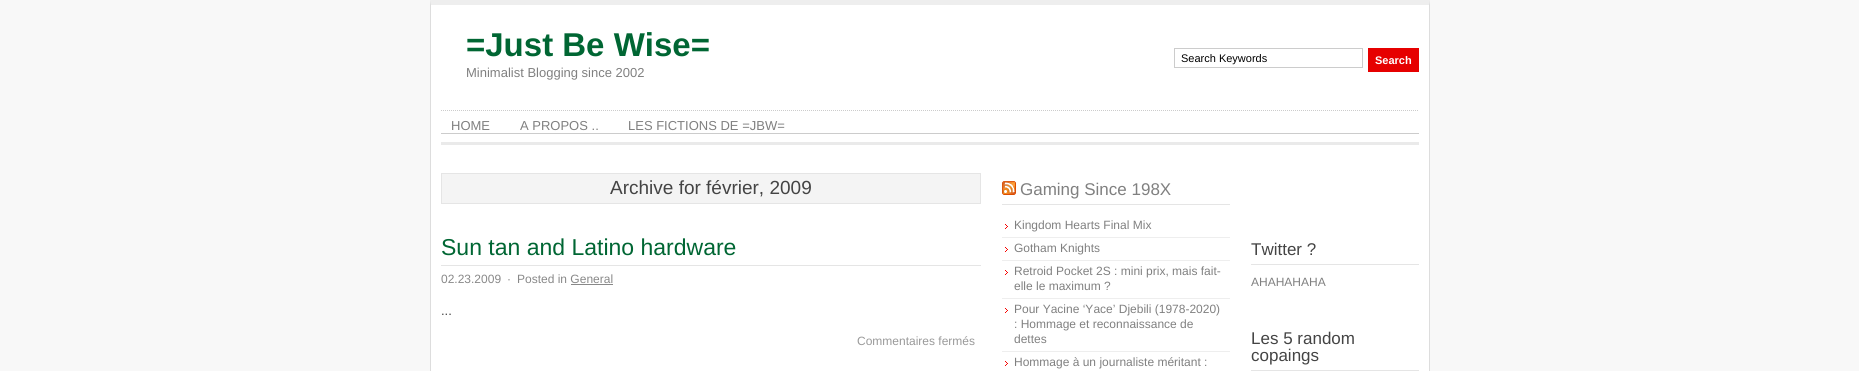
#include <cairo.h>
#include <math.h>
#include <stddef.h>

static cairo_t *c;
static void C(unsigned color){cairo_set_source_rgb(c, (color >> 16) / 255.0, (color >> 8 & 255) / 255.0, (color & 255) / 255.0);}
static void F(const char *family, double size, int italic, int bold){cairo_select_font_face(c, family, italic ? CAIRO_FONT_SLANT_ITALIC : CAIRO_FONT_SLANT_NORMAL,bold ? CAIRO_FONT_WEIGHT_BOLD : CAIRO_FONT_WEIGHT_NORMAL);cairo_set_font_size(c, size);}
static void T(double x, double y, const char *s){cairo_move_to(c, x, y);cairo_show_text(c, s);}
static void R(double x, double y, double w, double h){cairo_rectangle(c, x, y, w, h);cairo_fill(c);}
static void I(const char *path, double x, double y, double w, double h){cairo_surface_t *image = cairo_image_surface_create_from_png(path);cairo_save(c);cairo_set_source_surface(c, image, x, y);cairo_rectangle(c, x, y, w, h);cairo_fill(c);cairo_restore(c);cairo_surface_destroy(image);}
int main(void) {
cairo_surface_t *surface = cairo_image_surface_create(CAIRO_FORMAT_RGB24, 1859, 371);
c = cairo_create(surface);
cairo_font_options_t *options = cairo_font_options_create();
cairo_font_options_set_hint_metrics(options, CAIRO_HINT_METRICS_OFF);
cairo_font_options_set_hint_style(options, CAIRO_HINT_STYLE_NONE);
cairo_set_font_options(c, options);
cairo_set_miter_limit(c, 4);
C(0xf8f8f8);
cairo_paint(c);
C(0xffffff);
R(431,5,998,366);
C(0xeeeeee);
cairo_new_path(c);
cairo_move_to(c,430,0);
cairo_line_to(c,1430,0);
cairo_line_to(c,1429,5);
cairo_line_to(c,431,5);
cairo_close_path(c);
cairo_fill(c);
C(0xdddddd);
cairo_new_path(c);
cairo_move_to(c,1430,0);
cairo_line_to(c,1430,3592);
cairo_line_to(c,1429,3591);
cairo_line_to(c,1429,5);
cairo_close_path(c);
cairo_fill(c);
cairo_new_path(c);
cairo_move_to(c,430,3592);
cairo_line_to(c,430,0);
cairo_line_to(c,431,5);
cairo_line_to(c,431,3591);
cairo_close_path(c);
cairo_fill(c);
C(0xeaeaea);
R(441,142,978,3);
F("Liberation Sans",33,0,1);
C(0x006633);
T(466,56,"=Just Be Wise=");
F("Liberation Sans",13,0,0);
C(0x808080);
T(466,77,"Minimalist Blogging since 2002");
cairo_rectangle(c,1174.5,48.5,188,19);
C(0xcccccc);
cairo_set_line_width(c,1);
cairo_stroke(c);
F("Liberation Sans",11,0,0);
C(0x000000);
T(1181,62,"Search Keywords");
C(0xe60000);
R(1368,48,51,24);
F("Liberation Sans",11,0,1);
C(0xffffff);
T(1375,64,"Search");
I("1.png",441,110,977,1);
C(0xcccccc);
R(441,133,978,1);
F("Liberation Sans",13,0,0);
C(0x808080);
T(451,130,"HOME");
T(520,130,"A PROPOS ..");
T(628,130,"LES FICTIONS DE =JBW=");
C(0xf4f4f4);
cairo_rectangle(c,441.5,173.5,539,30);
cairo_fill_preserve(c);
C(0xe5e5e5);
cairo_stroke(c);
F("Liberation Sans",19,0,0);
C(0x444444);
T(610,194,"Archive for février, 2009");
C(0xe5e5e5);
R(441,265,540,1);
F("Liberation Sans",23,0,0);
C(0x006633);
T(441,255,"Sun tan and Latino hardware");
F("Liberation Sans",12,0,0);
C(0x888888);
T(441,283,"02.23.2009");
T(507,283,"·");
T(517,283,"Posted in General");
R(571,284,42,1);
F("Liberation Sans",13,0,0);
C(0x444444);
T(441,315,"...");
F("Liberation Sans",12,0,0);
C(0x999999);
T(857,345,"Commentaires fermés");
C(0xe5e5e5);
R(1002,204,228,1);
I("2.png",1002,181,14,14);
F("Liberation Sans",17,0,0);
C(0x808080);
T(1020,195,"Gaming Since 198X");
I("3.png",1005,224,3,5);
C(0xeeeeee);
R(1002,237,228,1);
F("Liberation Sans",12,0,0);
C(0x808080);
T(1014,229,"Kingdom Hearts Final Mix");
I("3.png",1005,247,3,5);
C(0xeeeeee);
R(1002,260,228,1);
C(0x808080);
T(1014,252,"Gotham Knights");
I("3.png",1005,270,3,5);
C(0xeeeeee);
R(1002,298,228,1);
C(0x808080);
T(1014,275,"Retroid Pocket 2S : mini prix, mais fait-");
T(1014,290,"elle le maximum ?");
I("3.png",1005,308,3,5);
C(0xeeeeee);
R(1002,351,228,1);
C(0x808080);
T(1014,313,"Pour Yacine ‘Yace’ Djebili (1978-2020)");
T(1014,328,": Hommage et reconnaissance de");
T(1014,343,"dettes");
I("3.png",1005,361,3,5);
T(1014,366,"Hommage à un journaliste méritant :");
C(0xe5e5e5);
R(1251,264,168,1);
F("Liberation Sans",17,0,0);
C(0x444444);
T(1251,255,"Twitter ?");
F("Liberation Sans",12,0,0);
C(0x808080);
T(1251,286,"AHAHAHAHA");
C(0xe5e5e5);
R(1251,370,168,1);
F("Liberation Sans",17,0,0);
C(0x444444);
T(1251,344,"Les 5 random");
T(1251,361,"copaings");
cairo_surface_write_to_png(surface, "o.png");
cairo_font_options_destroy(options);
cairo_destroy(c);
cairo_surface_destroy(surface);
return 0;
}
